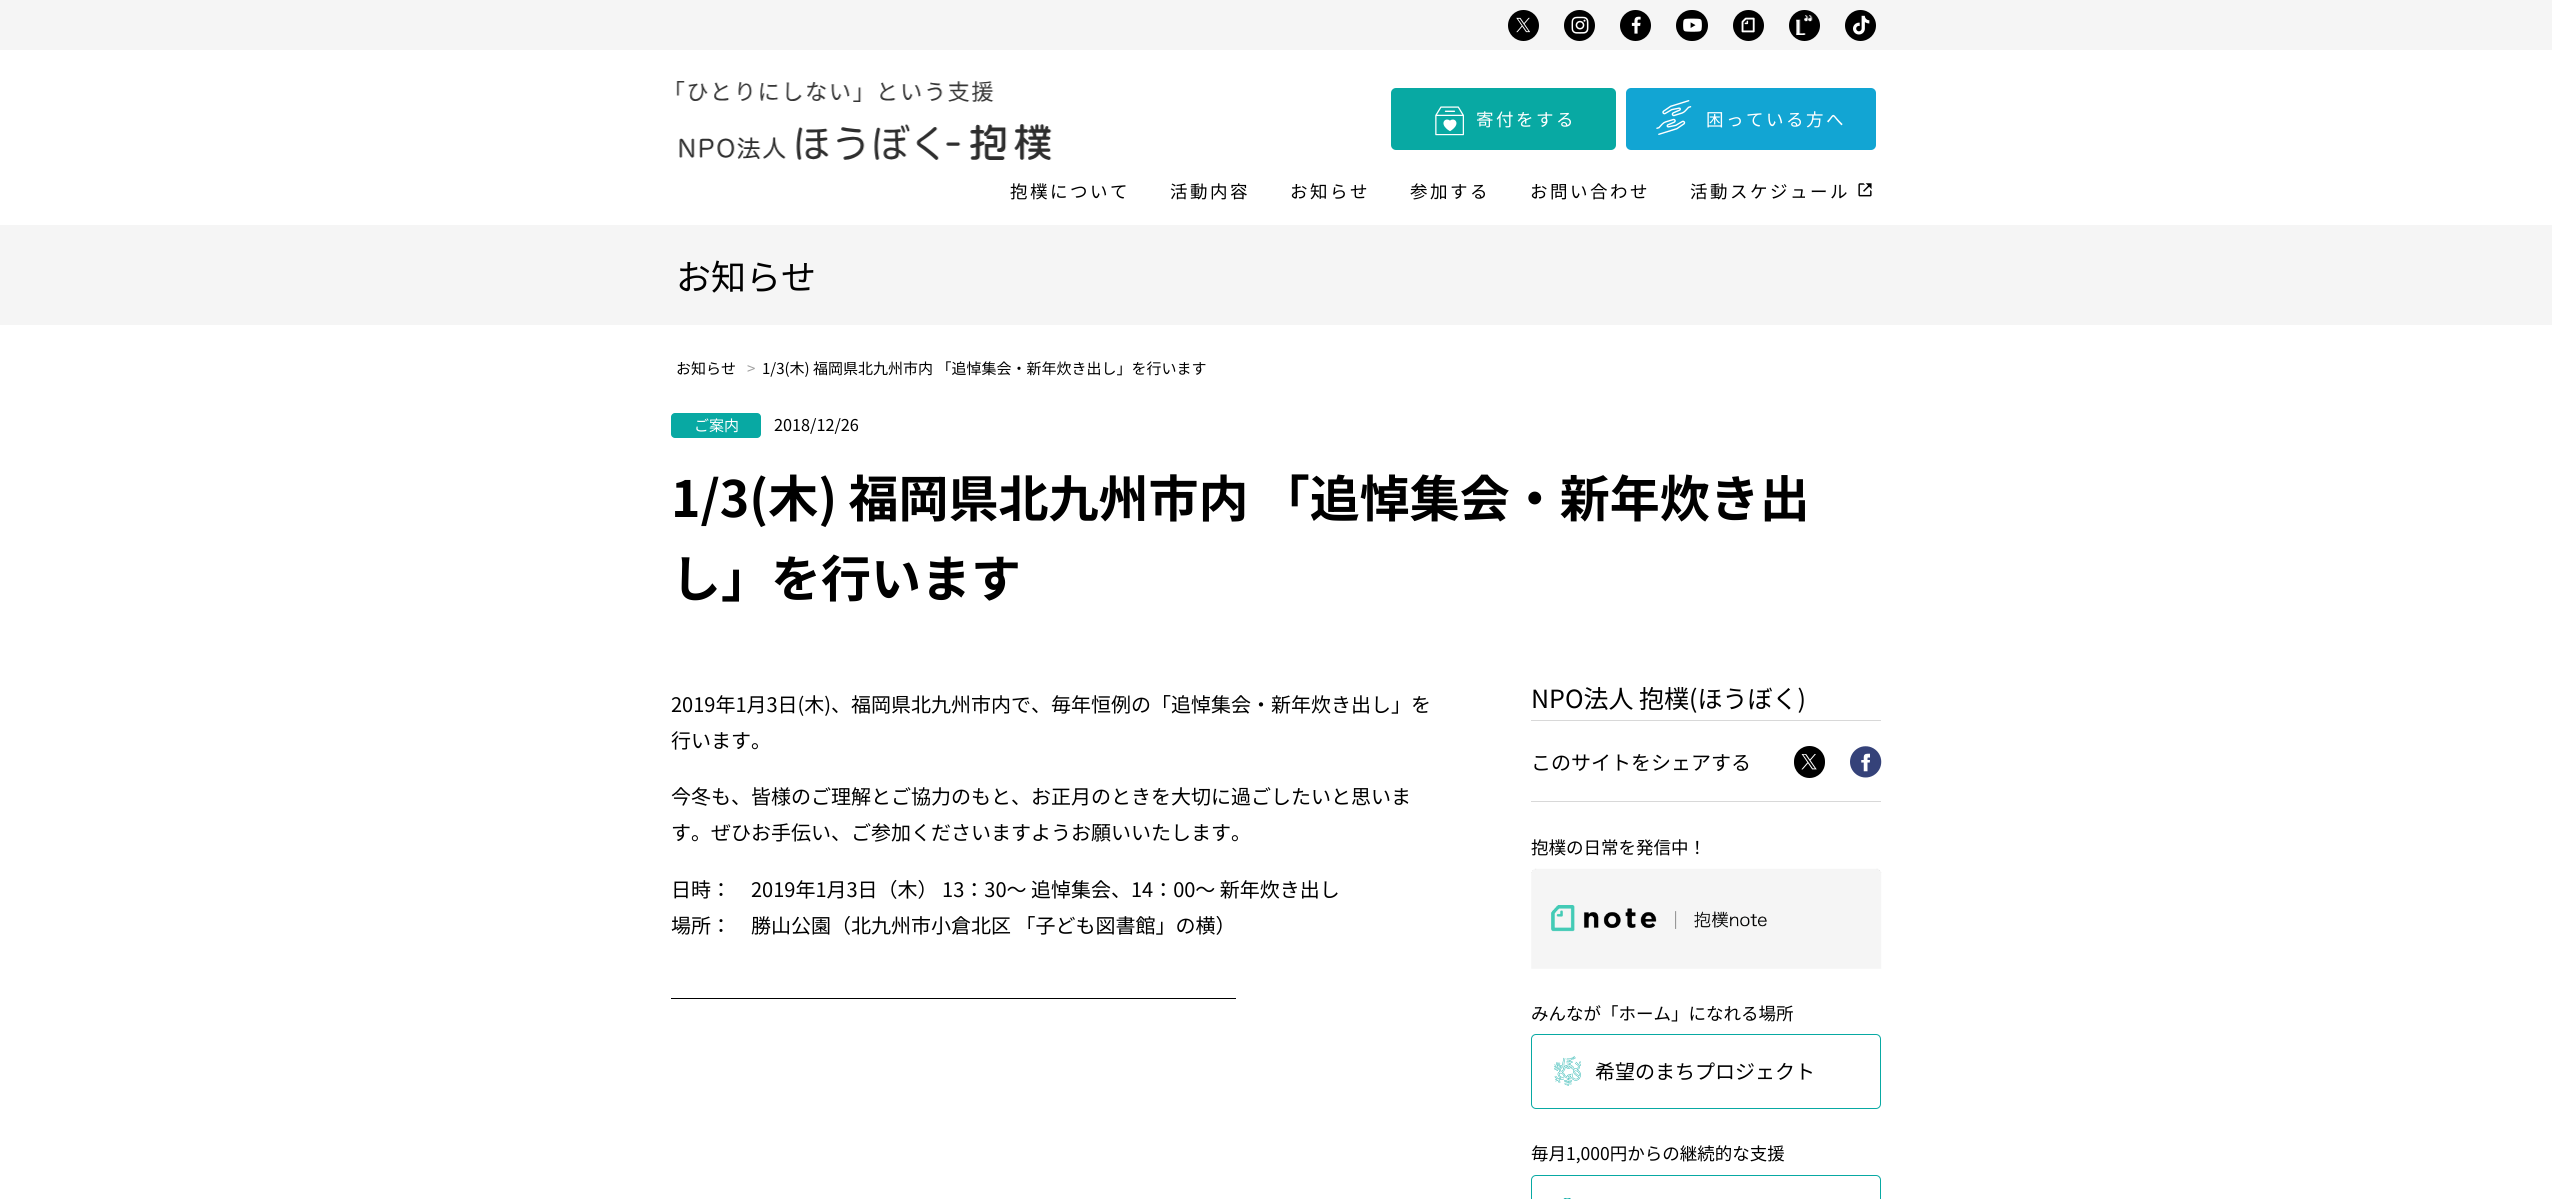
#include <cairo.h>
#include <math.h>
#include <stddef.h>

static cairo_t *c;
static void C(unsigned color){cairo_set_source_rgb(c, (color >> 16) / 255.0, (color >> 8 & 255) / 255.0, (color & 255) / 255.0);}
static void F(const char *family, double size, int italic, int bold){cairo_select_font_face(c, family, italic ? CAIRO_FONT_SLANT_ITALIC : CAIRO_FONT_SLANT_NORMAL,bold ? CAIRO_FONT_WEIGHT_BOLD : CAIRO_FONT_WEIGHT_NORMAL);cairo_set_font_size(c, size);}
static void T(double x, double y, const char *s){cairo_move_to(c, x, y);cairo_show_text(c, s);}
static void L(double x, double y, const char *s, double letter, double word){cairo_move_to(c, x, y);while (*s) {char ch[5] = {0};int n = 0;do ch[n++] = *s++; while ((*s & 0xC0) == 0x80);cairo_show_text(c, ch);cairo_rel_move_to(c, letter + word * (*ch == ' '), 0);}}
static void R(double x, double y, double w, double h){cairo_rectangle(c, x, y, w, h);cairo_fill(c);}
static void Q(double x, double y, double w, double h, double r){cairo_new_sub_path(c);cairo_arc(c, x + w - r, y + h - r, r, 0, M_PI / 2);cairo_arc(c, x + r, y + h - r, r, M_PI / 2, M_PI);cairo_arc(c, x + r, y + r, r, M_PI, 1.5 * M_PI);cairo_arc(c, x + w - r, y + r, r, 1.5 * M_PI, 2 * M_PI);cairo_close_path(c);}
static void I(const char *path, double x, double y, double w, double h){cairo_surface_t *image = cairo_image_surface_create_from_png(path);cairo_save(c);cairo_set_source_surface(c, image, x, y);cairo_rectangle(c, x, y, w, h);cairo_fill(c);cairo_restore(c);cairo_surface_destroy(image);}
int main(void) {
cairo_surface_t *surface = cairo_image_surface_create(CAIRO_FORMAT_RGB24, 2552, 1199);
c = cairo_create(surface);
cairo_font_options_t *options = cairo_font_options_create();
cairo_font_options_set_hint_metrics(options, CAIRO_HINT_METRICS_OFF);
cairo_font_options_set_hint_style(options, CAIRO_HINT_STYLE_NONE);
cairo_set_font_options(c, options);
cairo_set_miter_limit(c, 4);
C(0xffffff);
cairo_paint(c);
C(0xf5f5f5);
R(0,0,2552,50);
C(0x000000);
cairo_arc(c,1523.5,25.5,15.5,0,2 * M_PI);
cairo_fill(c);
I("1.png",1516,17,14,16);
cairo_arc(c,1579.5,25.5,15.5,0,2 * M_PI);
cairo_fill(c);
I("2.png",1571,16,18,18);
cairo_arc(c,1635.5,25.5,15.5,0,2 * M_PI);
cairo_fill(c);
I("3.png",1631,16,10,18);
Q(1676,10,32,31,15.5);
cairo_fill(c);
I("4.png",1683,18,19,14);
cairo_arc(c,1748.5,25.5,15.5,0,2 * M_PI);
cairo_fill(c);
I("5.png",1741,17,14,16);
cairo_arc(c,1804.5,25.5,15.5,0,2 * M_PI);
cairo_fill(c);
I("6.png",1796,15,17,20);
cairo_arc(c,1860.5,25.5,15.5,0,2 * M_PI);
cairo_fill(c);
I("7.png",1853,15,17,20);
I("8.png",676,81,376,79);
C(0x08a9a3);
Q(1391,88,225,62,5);
cairo_fill(c);
I("9.png",1435,106,29,30);
F("Noto Sans JP",17.5,0,0);
C(0xffffff);
L(1476,126,"寄付をする",2.5,0);
C(0x12a5d3);
Q(1626,88,250,62,5);
cairo_fill(c);
I("10.png",1656,100,36,35);
C(0xffffff);
L(1706,126,"困っている方へ",2.5,0);
C(0x000000);
L(1010,198,"抱樸について",2.5,0);
L(1170,198,"活動内容",2.5,0);
L(1290,198,"お知らせ",2.5,0);
L(1410,198,"参加する",2.5,0);
L(1530,198,"お問い合わせ",2.5,0);
L(1690,198,"活動スケジュール",2.5,0);
I("11.png",1858,183,14,14);
C(0xf5f5f5);
R(0,225,2552,100);
F("Noto Sans JP",35,0,0);
C(0x000000);
T(676,290,"お知らせ");
F("Noto Sans JP",15,0,0);
T(676,374,"お知らせ");
C(0x9f9f9f);
T(747,374,">");
C(0x000000);
T(762,374,"1/3(木) 福岡県北九州市内 「追悼集会・新年炊き出し」を行います");
C(0x08a9a3);
Q(671,413,90,25,4);
cairo_fill(c);
C(0xffffff);
T(694,431,"ご案内");
F("Noto Sans JP",16.25,0,0);
C(0x000000);
T(774,431,"2018/12/26");
F("Noto Sans JP",50,0,1);
T(671,517,"1/3(木) 福岡県北九州市内 「追悼集会・新年炊き出");
T(671,597,"し」を行います");
F("Noto Sans JP",20,0,0);
T(671,712,"2019年1月3日(木)、福岡県北九州市内で、毎年恒例の「追悼集会・新年炊き出し」を");
T(671,748,"行います。");
T(671,804,"今冬も、皆様のご理解とご協力のもと、お正月のときを大切に過ごしたいと思いま");
T(671,840,"す。ぜひお手伝い、ご参加くださいますようお願いいたします。");
T(671,897,"日時：　2019年1月3日（木） 13：30～ 追悼集会、14：00～ 新年炊き出し");
T(671,933,"場所：　勝山公園（北九州市小倉北区 「子ども図書館」の横）");
R(671,998,565,1);
F("Noto Sans JP",25,0,0);
T(1531,708,"NPO法人 抱樸(ほうぼく)");
C(0xd8d8d8);
R(1531,720,350,1);
R(1531,801,350,1);
F("Noto Sans JP",20,0,0);
C(0x000000);
T(1531,770,"このサイトをシェアする");
Q(1794,746,31,32,15.5);
cairo_fill(c);
I("12.png",1801,754,16,16);
I("13.png",1850,746,32,32);
F("Noto Sans JP",17.5,0,0);
T(1531,854,"抱樸の日常を発信中！");
I("14.png",1531,868,351,101);
T(1531,1020,"みんなが「ホーム」になれる場所");
Q(1531.5,1034.5,349,74,4.5);
C(0x08a9a3);
cairo_set_line_width(c,1);
cairo_stroke(c);
I("15.png",1554,1056,27,30);
F("Noto Sans JP",20,0,0);
C(0x000000);
T(1595,1079,"希望のまちプロジェクト");
F("Noto Sans JP",17.5,0,0);
T(1531,1160,"毎月1,000円からの継続的な支援");
Q(1531.5,1175.5,349,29,4.5);
C(0x08a9a3);
cairo_stroke(c);
I("16.png",1563,1198,8,1);
cairo_surface_write_to_png(surface, "o.png");
cairo_font_options_destroy(options);
cairo_destroy(c);
cairo_surface_destroy(surface);
return 0;
}
